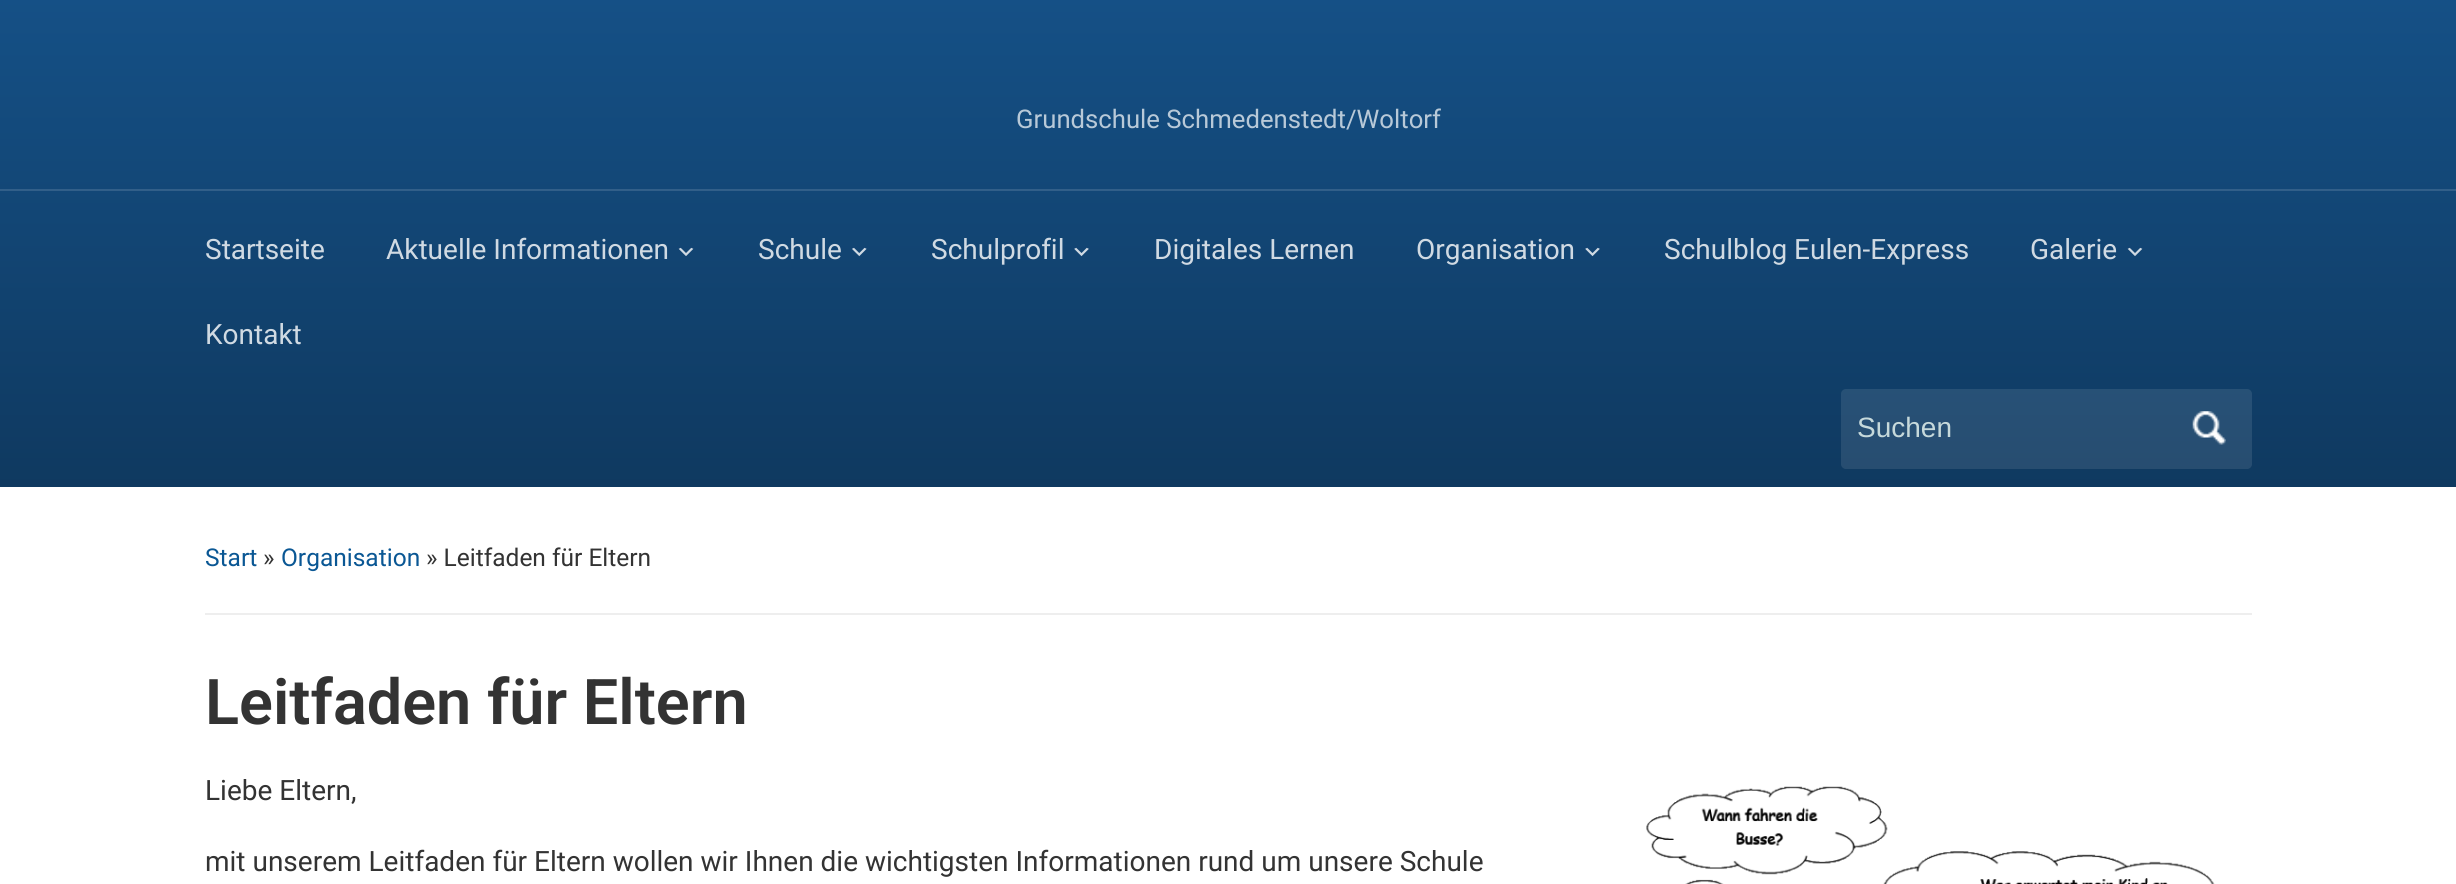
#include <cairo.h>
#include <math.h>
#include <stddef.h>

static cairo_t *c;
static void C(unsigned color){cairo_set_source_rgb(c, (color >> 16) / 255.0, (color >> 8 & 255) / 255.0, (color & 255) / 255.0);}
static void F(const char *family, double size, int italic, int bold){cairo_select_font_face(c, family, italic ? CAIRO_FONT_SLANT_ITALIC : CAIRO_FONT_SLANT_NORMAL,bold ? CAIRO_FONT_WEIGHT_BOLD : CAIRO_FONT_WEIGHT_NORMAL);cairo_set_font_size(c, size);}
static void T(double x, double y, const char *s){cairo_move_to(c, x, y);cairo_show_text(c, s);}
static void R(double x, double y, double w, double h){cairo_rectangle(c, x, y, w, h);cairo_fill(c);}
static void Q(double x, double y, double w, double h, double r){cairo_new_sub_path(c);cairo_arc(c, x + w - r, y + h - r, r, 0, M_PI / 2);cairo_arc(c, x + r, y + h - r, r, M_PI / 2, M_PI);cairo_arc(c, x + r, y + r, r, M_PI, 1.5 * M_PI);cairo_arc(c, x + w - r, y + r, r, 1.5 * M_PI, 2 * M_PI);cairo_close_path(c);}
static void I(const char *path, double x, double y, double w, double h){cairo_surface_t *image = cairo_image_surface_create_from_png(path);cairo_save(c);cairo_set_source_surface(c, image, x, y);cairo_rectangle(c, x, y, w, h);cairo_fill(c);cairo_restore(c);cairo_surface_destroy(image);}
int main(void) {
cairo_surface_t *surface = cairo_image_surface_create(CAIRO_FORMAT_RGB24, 2456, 884);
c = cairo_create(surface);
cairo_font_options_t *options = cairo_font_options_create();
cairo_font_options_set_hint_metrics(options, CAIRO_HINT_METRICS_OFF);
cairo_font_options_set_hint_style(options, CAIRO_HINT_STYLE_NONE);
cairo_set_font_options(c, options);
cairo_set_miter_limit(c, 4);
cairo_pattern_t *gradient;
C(0xffffff);
cairo_paint(c);
gradient = cairo_pattern_create_linear(1229,0,1229,487);
cairo_pattern_add_color_stop_rgba(gradient,0,0.082,0.314,0.525,1);
cairo_pattern_add_color_stop_rgba(gradient,1,0.059,0.224,0.376,1);
cairo_set_source(c,gradient);
cairo_pattern_destroy(gradient);
R(0,0,2456,487);
F("Roboto",25.7,0,0);
C(0xb8c9d8);
T(1016,128,"Grundschule Schmedenstedt/Woltorf");
C(0x325f89);
R(0,189,2456,2);
F("Roboto",28,0,0);
C(0xd0dae3);
T(205,259,"Startseite");
T(386,259,"Aktuelle Informationen");
I("1.png",678,247,16,9);
T(758,259,"Schule");
I("2.png",852,247,15,10);
T(931,259,"Schulprofil");
I("3.png",1074,247,15,10);
T(1154,259,"Digitales Lernen");
T(1416,259,"Organisation");
I("3.png",1585,247,15,10);
T(1664,259,"Schulblog Eulen-Express");
T(2030,259,"Galerie");
I("1.png",2127,247,16,9);
T(205,344,"Kontakt");
cairo_set_source_rgba(c,1,1,1,0.1);
Q(1841,389,411,80,5);
cairo_fill(c);
F("Liberation Sans",28,0,0);
C(0xc6d9db);
T(1857,437,"Suchen");
I("4.png",2192,411,34,34);
C(0xeeeeee);
R(205,613,2047,2);
F("Roboto",24.5,0,0);
C(0x0a5794);
T(205,566,"Start");
C(0x333333);
T(263,566,"»");
C(0x0a5794);
T(281,566,"Organisation");
C(0x333333);
T(426,566,"» Leitfaden für Eltern");
F("Roboto SemiBold",63,0,0);
T(205,724,"Leitfaden für Eltern");
F("Roboto",28,0,0);
T(205,800,"Liebe Eltern,");
I("5.png",1646,786,569,98);
T(205,871,"mit unserem Leitfaden für Eltern wollen wir Ihnen die wichtigsten Informationen rund um unsere Schule");
cairo_surface_write_to_png(surface, "o.png");
cairo_font_options_destroy(options);
cairo_destroy(c);
cairo_surface_destroy(surface);
return 0;
}
